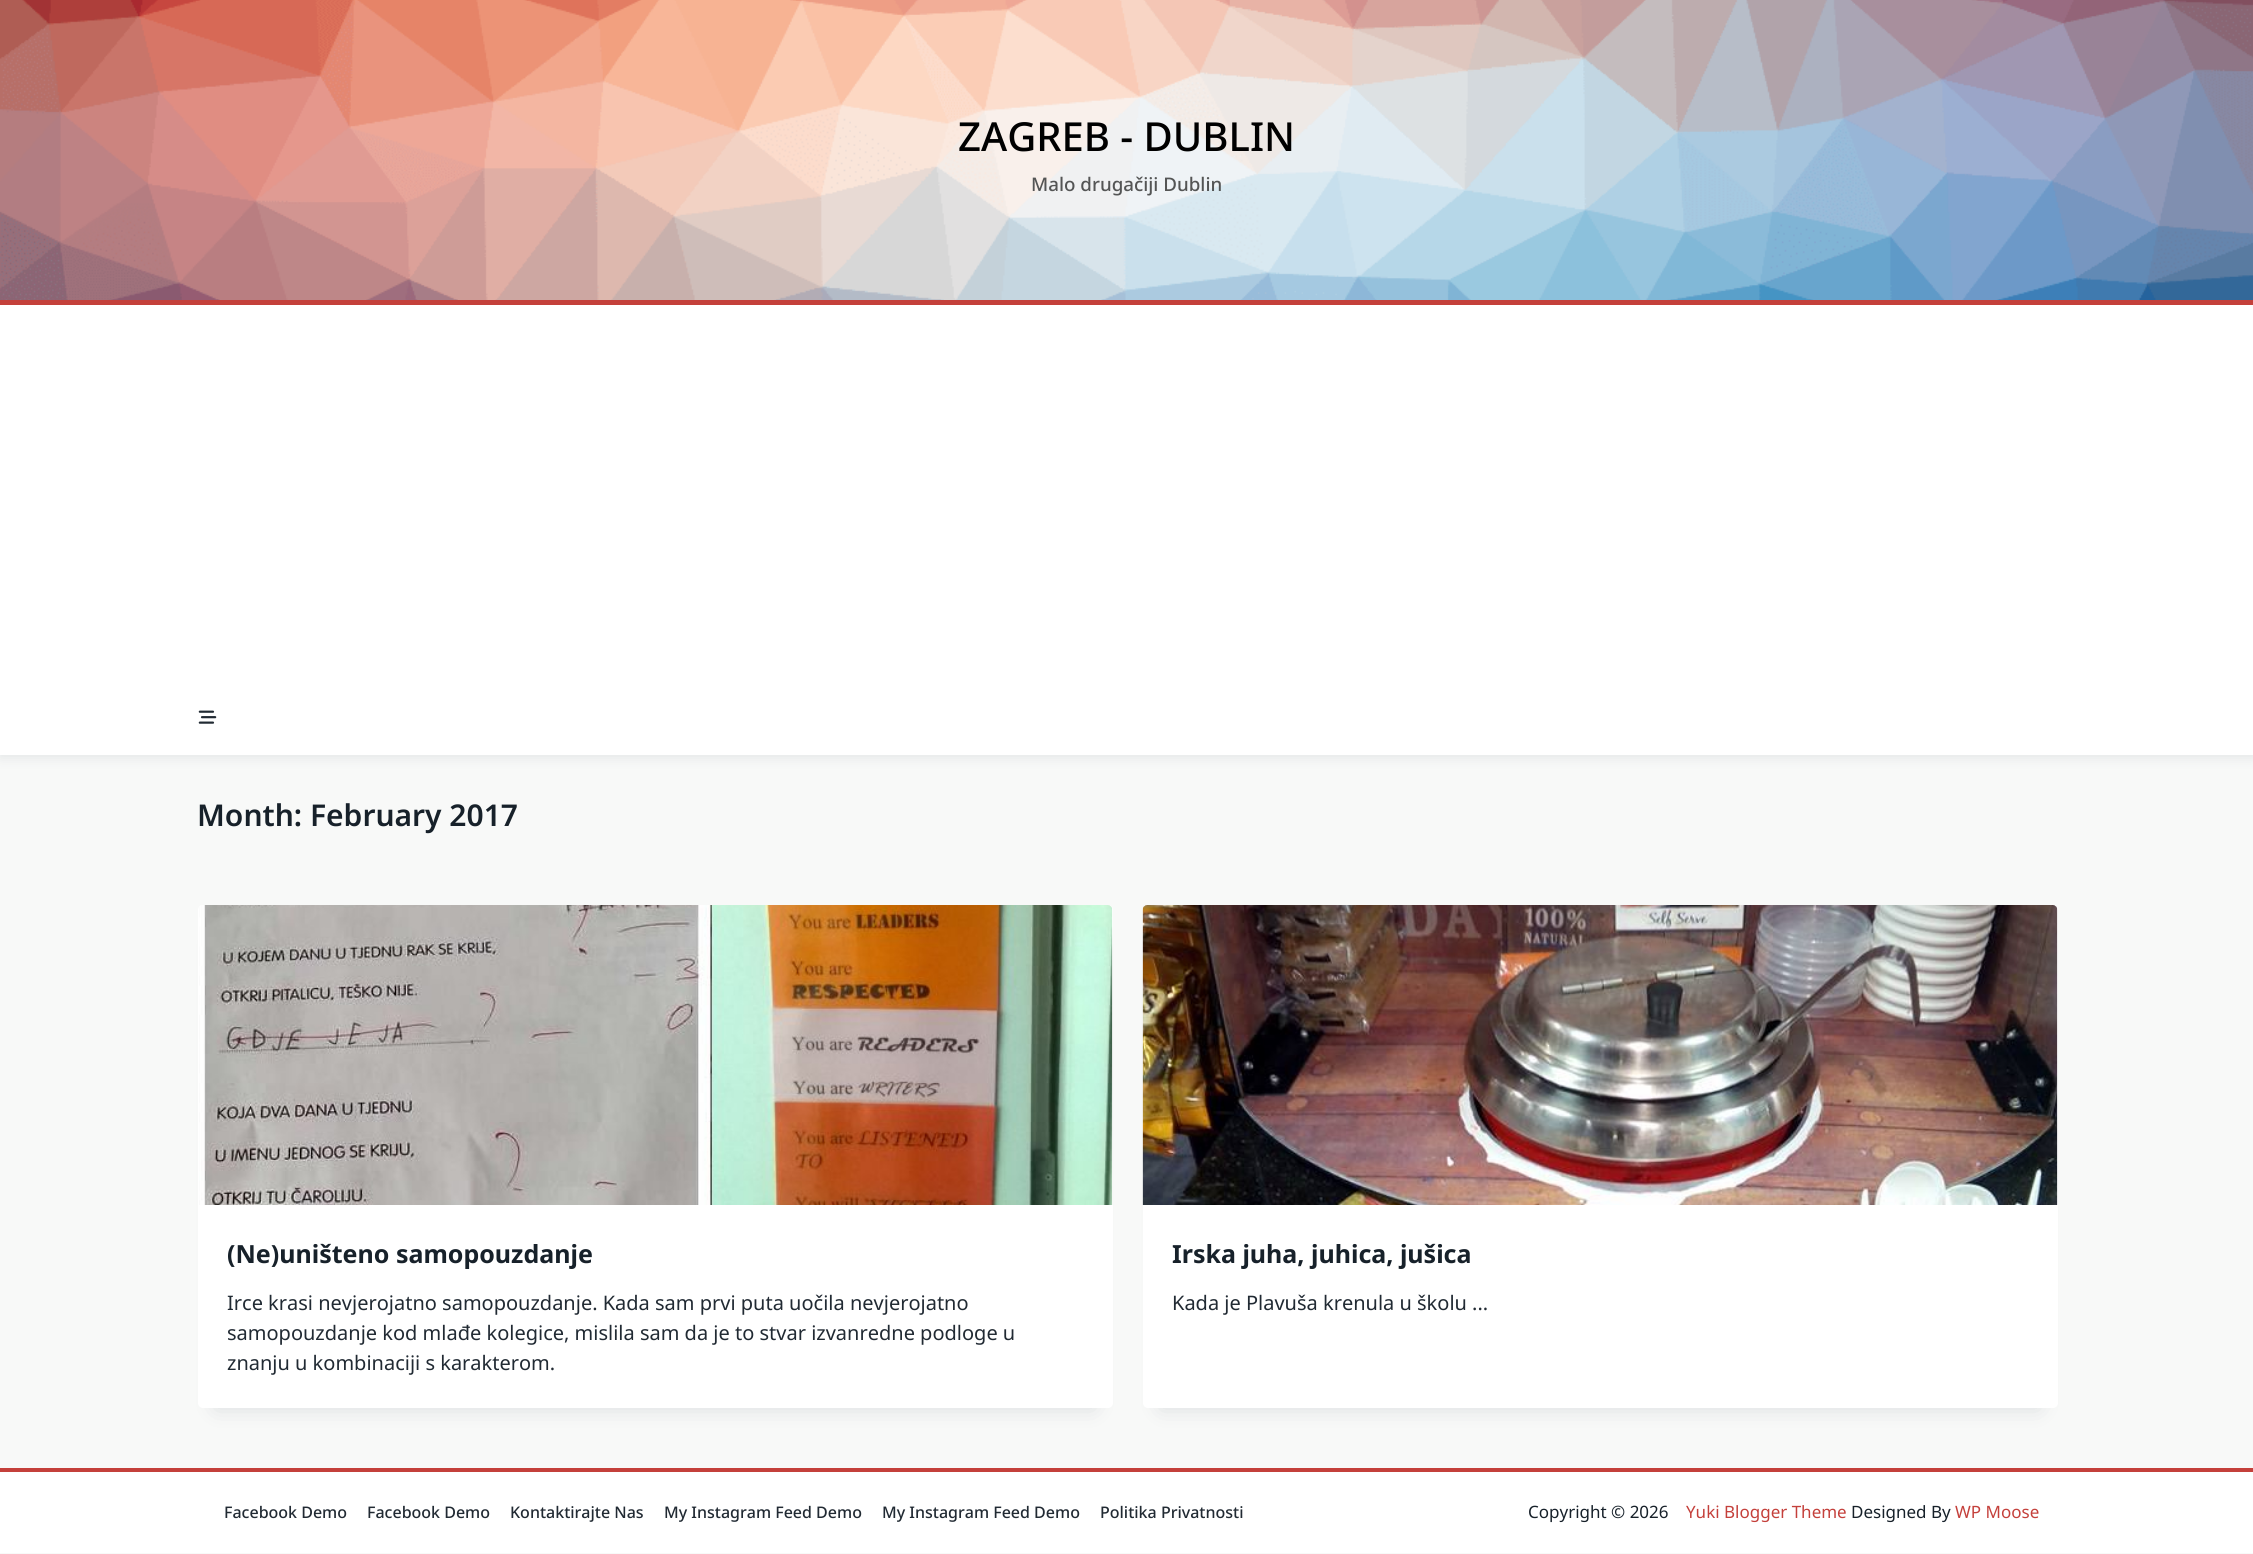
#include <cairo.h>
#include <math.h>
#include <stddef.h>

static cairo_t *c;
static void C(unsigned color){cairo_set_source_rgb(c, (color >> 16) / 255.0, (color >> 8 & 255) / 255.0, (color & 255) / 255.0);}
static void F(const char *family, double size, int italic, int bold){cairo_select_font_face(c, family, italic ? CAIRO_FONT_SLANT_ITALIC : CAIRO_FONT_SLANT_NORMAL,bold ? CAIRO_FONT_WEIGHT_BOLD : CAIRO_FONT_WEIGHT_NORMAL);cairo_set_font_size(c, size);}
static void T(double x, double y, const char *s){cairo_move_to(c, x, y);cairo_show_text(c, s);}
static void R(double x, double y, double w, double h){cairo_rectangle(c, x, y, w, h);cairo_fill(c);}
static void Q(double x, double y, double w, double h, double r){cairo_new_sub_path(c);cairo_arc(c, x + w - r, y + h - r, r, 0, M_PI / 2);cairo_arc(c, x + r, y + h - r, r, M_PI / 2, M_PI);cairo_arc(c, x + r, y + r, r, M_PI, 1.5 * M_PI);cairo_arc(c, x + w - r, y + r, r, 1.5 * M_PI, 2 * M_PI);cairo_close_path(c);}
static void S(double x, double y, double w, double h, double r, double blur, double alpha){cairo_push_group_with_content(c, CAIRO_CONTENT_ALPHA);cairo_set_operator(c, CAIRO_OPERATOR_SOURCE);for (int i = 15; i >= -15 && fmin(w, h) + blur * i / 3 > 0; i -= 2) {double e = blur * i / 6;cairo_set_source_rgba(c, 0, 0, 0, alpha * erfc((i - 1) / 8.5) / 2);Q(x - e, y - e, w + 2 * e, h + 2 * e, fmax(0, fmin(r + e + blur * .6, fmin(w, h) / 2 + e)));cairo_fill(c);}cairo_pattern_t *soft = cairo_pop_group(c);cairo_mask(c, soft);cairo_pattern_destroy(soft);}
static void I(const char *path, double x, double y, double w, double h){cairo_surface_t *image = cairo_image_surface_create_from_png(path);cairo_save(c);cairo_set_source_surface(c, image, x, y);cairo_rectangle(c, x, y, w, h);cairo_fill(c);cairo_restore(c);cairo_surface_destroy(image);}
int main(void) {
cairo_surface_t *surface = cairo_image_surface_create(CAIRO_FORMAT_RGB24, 2253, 1554);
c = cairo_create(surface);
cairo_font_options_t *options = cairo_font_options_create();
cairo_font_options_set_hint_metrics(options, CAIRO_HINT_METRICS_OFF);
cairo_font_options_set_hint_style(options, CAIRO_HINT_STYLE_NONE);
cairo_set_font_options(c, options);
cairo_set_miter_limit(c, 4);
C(0xf8f9f8);
cairo_paint(c);
C(0x2c3e50);
S(0,303,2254,455,0,6,.1);
I("1.png",0,0,2253,300);
F("Noto Sans Medium",40,0,0);
C(0x000000);
T(958,151,"ZAGREB - DUBLIN");
F("Noto Sans Medium",18.75,0,0);
C(0x545555);
T(1031,191,"Malo drugačiji Dublin");
C(0xffffff);
R(0,305,2253,450);
C(0xc4403b);
R(0,300,2253,5);
I("2.png",198,710,19,14);
F("Noto Sans SemiBold",30,0,0);
C(0x17212a);
T(197,826,"Month: February 2017");
C(0x2c3e50);
S(216,943,878,465,0,11,.15);
C(0xffffff);
Q(198,905,915,503,5);
cairo_fill(c);
I("3.png",199,905,914,300);
F("Noto Sans",25,0,1);
C(0x17212a);
T(227,1263,"(Ne)uništeno samopouzdanje");
F("Noto Sans",20,0,0);
C(0x212a33);
T(227,1310,"Irce krasi nevjerojatno samopouzdanje. Kada sam prvi puta uočila nevjerojatno");
T(227,1340,"samopouzdanje kod mlađe kolegice, mislila sam da je to stvar izvanredne podloge u");
T(227,1370,"znanju u kombinaciji s karakterom.");
C(0x2c3e50);
S(1161,943,878,465,0,11,.15);
C(0xffffff);
Q(1143,905,915,503,5);
cairo_fill(c);
I("4.png",1142,905,916,300);
F("Noto Sans",25,0,1);
C(0x17212a);
T(1172,1263,"Irska juha, juhica, jušica");
F("Noto Sans",20,0,0);
C(0x212a33);
T(1172,1310,"Kada je Plavuša krenula u školu ...");
C(0xffffff);
R(0,1472,2253,81);
C(0xc4403b);
R(0,1468,2253,4);
F("Noto Sans Medium",16,0,0);
C(0x212a33);
T(224,1518,"Facebook Demo");
T(367,1518,"Facebook Demo");
T(510,1518,"Kontaktirajte Nas");
T(664,1518,"My Instagram Feed Demo");
T(882,1518,"My Instagram Feed Demo");
T(1100,1518,"Politika Privatnosti");
F("Noto Sans",17,0,0);
C(0x17212a);
T(1528,1518,"Copyright © 2026");
C(0xc4403b);
T(1686,1518,"Yuki Blogger Theme");
C(0x17212a);
T(1851,1518,"Designed By");
C(0xc4403b);
T(1955,1518,"WP Moose");
cairo_surface_write_to_png(surface, "o.png");
cairo_font_options_destroy(options);
cairo_destroy(c);
cairo_surface_destroy(surface);
return 0;
}
